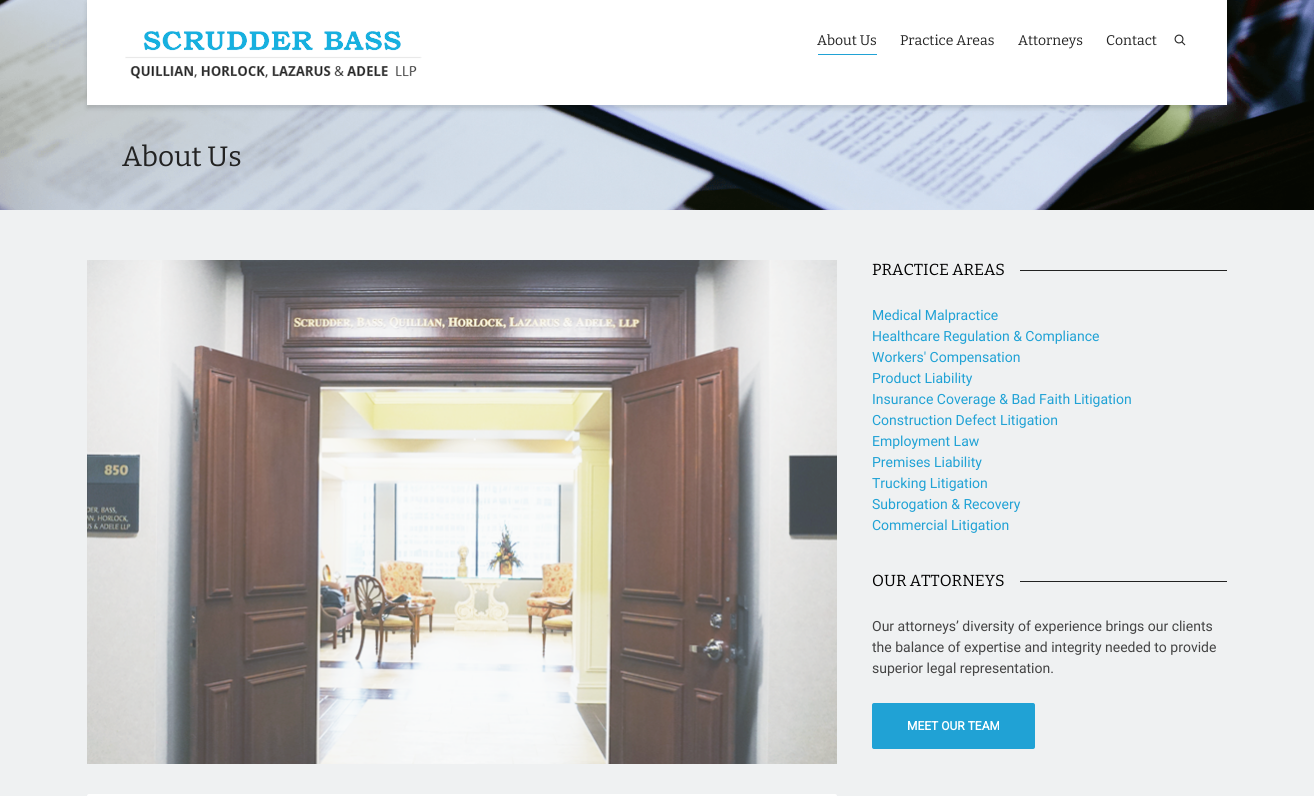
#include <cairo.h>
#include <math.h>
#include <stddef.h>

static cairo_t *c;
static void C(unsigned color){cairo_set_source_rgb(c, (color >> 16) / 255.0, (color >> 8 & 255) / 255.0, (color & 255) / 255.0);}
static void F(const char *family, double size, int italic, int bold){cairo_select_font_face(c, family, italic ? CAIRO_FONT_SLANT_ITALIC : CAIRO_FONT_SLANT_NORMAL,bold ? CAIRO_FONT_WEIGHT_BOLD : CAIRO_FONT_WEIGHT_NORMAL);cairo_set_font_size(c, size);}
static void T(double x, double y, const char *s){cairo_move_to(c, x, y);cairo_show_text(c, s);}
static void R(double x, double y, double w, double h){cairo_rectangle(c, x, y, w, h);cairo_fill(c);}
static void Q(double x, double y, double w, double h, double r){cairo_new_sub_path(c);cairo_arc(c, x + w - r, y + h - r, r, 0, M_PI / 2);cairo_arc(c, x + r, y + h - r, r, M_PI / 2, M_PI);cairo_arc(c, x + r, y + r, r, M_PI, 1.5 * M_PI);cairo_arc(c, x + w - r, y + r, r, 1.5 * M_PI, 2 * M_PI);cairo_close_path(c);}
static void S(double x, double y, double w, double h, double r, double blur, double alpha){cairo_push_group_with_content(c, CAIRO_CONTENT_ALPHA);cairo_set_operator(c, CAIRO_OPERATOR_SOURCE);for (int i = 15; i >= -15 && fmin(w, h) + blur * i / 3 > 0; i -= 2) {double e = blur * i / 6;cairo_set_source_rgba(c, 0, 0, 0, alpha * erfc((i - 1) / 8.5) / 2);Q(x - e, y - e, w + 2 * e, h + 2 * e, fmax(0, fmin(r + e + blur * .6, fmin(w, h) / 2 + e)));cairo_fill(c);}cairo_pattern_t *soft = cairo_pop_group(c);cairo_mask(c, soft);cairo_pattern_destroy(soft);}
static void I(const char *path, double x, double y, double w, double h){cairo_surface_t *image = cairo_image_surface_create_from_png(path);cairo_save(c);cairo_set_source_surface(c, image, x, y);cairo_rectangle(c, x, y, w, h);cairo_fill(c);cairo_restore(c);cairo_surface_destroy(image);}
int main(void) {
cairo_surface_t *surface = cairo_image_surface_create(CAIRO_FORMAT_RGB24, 1314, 796);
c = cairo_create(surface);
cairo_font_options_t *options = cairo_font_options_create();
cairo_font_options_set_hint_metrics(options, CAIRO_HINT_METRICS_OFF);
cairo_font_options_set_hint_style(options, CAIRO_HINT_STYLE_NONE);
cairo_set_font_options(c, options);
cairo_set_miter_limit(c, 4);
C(0xeff1f2);
cairo_paint(c);
I("3.png",0,0,1314,210);
C(0x000000);
S(87,3,1140,105,0,2.5,.1);
S(87,3,1140,105,0,2.5,.05);
C(0xffffff);
R(87,0,1140,105);
I("1.png",125,31,297,48);
F("Bitter Thin",14,0,0);
C(0x222222);
T(817,45,"About Us");
C(0x20a2d5);
R(818,54,59,1);
C(0x222222);
T(900,45,"Practice Areas");
T(1018,45,"Attorneys");
T(1106,45,"Contact");
I("2.png",1174,34,12,12);
F("Bitter Thin",28,0,0);
T(122,166,"About Us");
I("4.png",87,260,750,504);
C(0xffffff);
Q(87,794,750,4,2);
cairo_fill(c);
F("Bitter Thin",16,0,0);
C(0x000000);
T(872,275,"PRACTICE AREAS");
C(0x222222);
R(1020,270,207,1);
F("Roboto",14,0,0);
C(0x20a2d5);
T(872,320,"Medical Malpractice");
T(872,341,"Healthcare Regulation & Compliance");
T(872,362,"Workers' Compensation");
T(872,383,"Product Liability");
T(872,404,"Insurance Coverage & Bad Faith Litigation");
T(872,425,"Construction Defect Litigation");
T(872,446,"Employment Law");
T(872,467,"Premises Liability");
T(872,488,"Trucking Litigation");
T(872,509,"Subrogation & Recovery");
T(872,530,"Commercial Litigation");
F("Bitter Thin",16,0,0);
C(0x000000);
T(872,586,"OUR ATTORNEYS");
C(0x222222);
R(1020,581,207,1);
F("Roboto",14,0,0);
C(0x444444);
T(872,631,"Our attorneys’ diversity of experience brings our clients");
T(872,652,"the balance of expertise and integrity needed to provide");
T(872,673,"superior legal representation.");
C(0x20a2d5);
Q(872,703,163,46,2);
cairo_fill(c);
F("Roboto",12,0,1);
C(0xffffff);
T(907,730,"MEET OUR TEAM");
cairo_surface_write_to_png(surface, "o.png");
cairo_font_options_destroy(options);
cairo_destroy(c);
cairo_surface_destroy(surface);
return 0;
}
